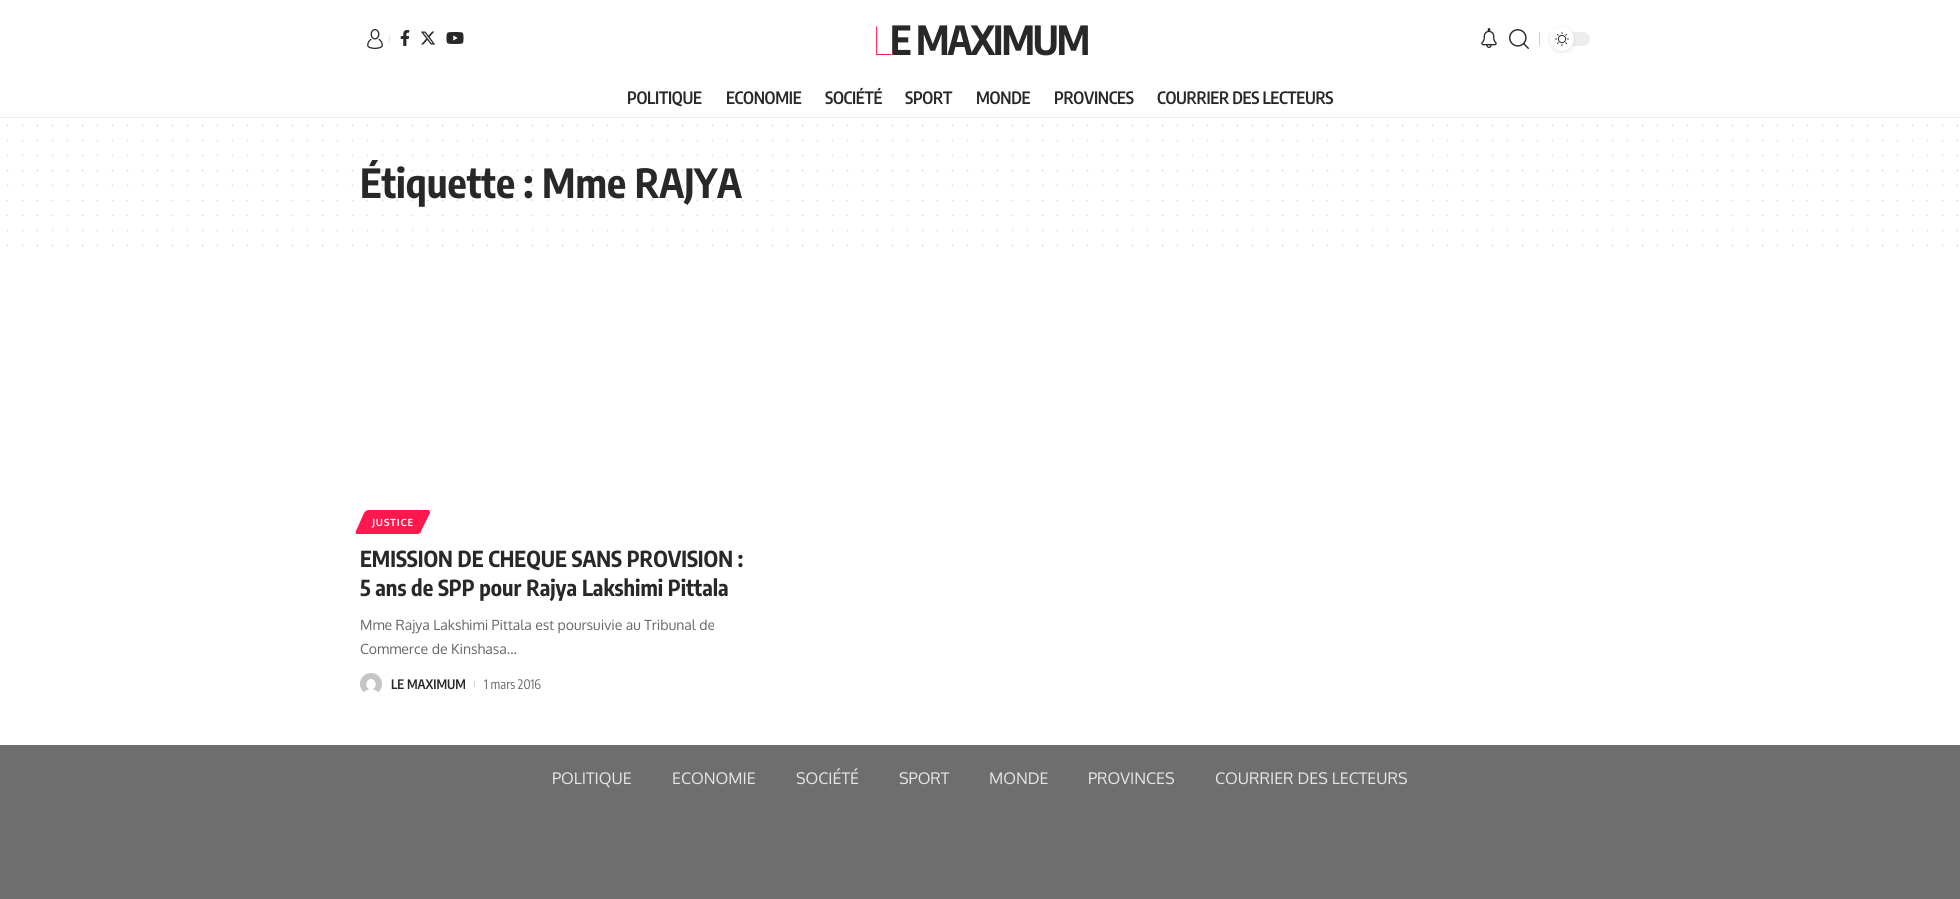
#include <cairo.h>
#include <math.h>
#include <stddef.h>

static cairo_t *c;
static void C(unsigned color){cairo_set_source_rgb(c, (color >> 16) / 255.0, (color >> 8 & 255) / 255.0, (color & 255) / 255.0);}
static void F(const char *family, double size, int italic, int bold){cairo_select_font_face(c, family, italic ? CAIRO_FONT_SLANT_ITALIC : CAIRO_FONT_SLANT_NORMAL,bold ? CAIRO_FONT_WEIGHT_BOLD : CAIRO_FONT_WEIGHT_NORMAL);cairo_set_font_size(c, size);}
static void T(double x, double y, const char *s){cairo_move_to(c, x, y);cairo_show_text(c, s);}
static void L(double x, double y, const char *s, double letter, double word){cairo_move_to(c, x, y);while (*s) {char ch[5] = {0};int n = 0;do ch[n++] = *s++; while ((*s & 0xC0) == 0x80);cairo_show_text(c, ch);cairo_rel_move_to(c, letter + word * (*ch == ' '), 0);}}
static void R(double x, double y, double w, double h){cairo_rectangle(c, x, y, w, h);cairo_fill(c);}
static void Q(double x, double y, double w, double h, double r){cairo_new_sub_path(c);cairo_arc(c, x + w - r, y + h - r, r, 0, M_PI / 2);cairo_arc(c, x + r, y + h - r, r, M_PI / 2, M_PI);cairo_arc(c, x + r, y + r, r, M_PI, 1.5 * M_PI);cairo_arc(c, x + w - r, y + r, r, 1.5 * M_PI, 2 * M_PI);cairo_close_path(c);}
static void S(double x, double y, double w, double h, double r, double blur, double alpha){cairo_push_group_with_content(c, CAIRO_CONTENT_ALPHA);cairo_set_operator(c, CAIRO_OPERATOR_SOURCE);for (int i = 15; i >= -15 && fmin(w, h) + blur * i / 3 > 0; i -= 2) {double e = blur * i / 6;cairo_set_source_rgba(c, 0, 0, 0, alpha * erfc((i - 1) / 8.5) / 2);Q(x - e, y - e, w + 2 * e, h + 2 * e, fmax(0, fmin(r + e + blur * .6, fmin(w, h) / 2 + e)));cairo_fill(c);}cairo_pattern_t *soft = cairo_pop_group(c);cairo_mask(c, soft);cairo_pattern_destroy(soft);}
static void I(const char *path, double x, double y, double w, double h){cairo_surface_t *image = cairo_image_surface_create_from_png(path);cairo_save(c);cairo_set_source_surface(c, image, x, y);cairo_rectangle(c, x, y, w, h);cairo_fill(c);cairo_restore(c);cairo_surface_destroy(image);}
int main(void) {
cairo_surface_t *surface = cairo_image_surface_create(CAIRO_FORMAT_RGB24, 1960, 899);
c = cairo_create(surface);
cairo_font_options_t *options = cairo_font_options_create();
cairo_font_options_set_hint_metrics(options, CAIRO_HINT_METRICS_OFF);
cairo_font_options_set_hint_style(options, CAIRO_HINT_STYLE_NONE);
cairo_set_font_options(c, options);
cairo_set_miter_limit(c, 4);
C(0xffffff);
cairo_paint(c);
I("1.png",367,29,16,20);
C(0xe4e4e4);
R(389,35,1,8);
I("2.png",400,30,10,16);
I("3.png",421,31,15,14);
I("4.png",446,32,18,12);
F("Noto Sans Thin",40,0,0);
C(0xff184e);
L(872,55,"L",-2,0);
F("Encode Sans Condensed",40,0,1);
C(0x282828);
L(890,55,"E MAXIMUM",-2,0);
I("5.png",1481,28,16,20);
I("6.png",1509,29,20,20);
C(0xcfcfcf);
R(1539,32,1,14);
C(0xededed);
Q(1550,32,40,14,7);
cairo_fill(c);
C(0x000000);
S(1550,28,24,24,12,2,.12);
C(0xffffff);
cairo_arc(c,1562,39,12,0,2 * M_PI);
cairo_fill(c);
I("7.png",1555,32,14,14);
F("Encode Sans Condensed SemiBold",17,0,0);
C(0x282828);
L(627,104,"POLITIQUE",-.3,0);
L(726,104,"ECONOMIE",-.3,0);
L(825,104,"SOCIÉTÉ",-.3,0);
L(905,104,"SPORT",-.3,0);
L(976,104,"MONDE",-.3,0);
L(1054,104,"PROVINCES",-.3,0);
L(1157,104,"COURRIER DES LECTEURS",-.3,0);
C(0xededed);
R(0,117,1960,1);
cairo_new_path(c);
cairo_move_to(c,7.5,125.5);
cairo_line_to(c,1957.7,125.5);
C(0xdfdfdf);
cairo_set_line_cap(c,CAIRO_LINE_CAP_ROUND);
cairo_set_dash(c,(double[]){0,15},2,0);
cairo_stroke(c);
cairo_new_path(c);
cairo_move_to(c,7.5,140.5);
cairo_line_to(c,1957.7,140.5);
cairo_stroke(c);
cairo_new_path(c);
cairo_move_to(c,7.5,155.5);
cairo_line_to(c,1957.7,155.5);
cairo_stroke(c);
F("Encode Sans Condensed",40,0,1);
C(0x282828);
T(360,198,"Étiquette : Mme RAJYA");
cairo_new_path(c);
cairo_move_to(c,7.5,170.5);
cairo_line_to(c,1957.7,170.5);
cairo_set_source_rgba(c,0.157,0.157,0.157,0.15);
cairo_stroke(c);
cairo_new_path(c);
cairo_move_to(c,7.5,185.5);
cairo_line_to(c,1957.7,185.5);
cairo_stroke(c);
cairo_new_path(c);
cairo_move_to(c,7.5,200.5);
cairo_line_to(c,1957.7,200.5);
C(0xdfdfdf);
cairo_stroke(c);
cairo_new_path(c);
cairo_move_to(c,7.5,215.5);
cairo_line_to(c,1957.7,215.5);
cairo_stroke(c);
cairo_new_path(c);
cairo_move_to(c,7.5,230.5);
cairo_line_to(c,1957.7,230.5);
cairo_stroke(c);
cairo_new_path(c);
cairo_move_to(c,7.5,245.5);
cairo_line_to(c,1957.7,245.5);
cairo_stroke(c);
C(0xff184e);
cairo_new_path(c);
cairo_move_to(c,369,510);
cairo_line_to(c,428,510);
cairo_curve_to(c,430,510,430,511,430,513);
cairo_line_to(c,421,531);
cairo_curve_to(c,421,533,419,534,417,534);
cairo_line_to(c,357,534);
cairo_curve_to(c,356,534,355,533,356,531);
cairo_line_to(c,364,513);
cairo_curve_to(c,365,511,367,510,369,510);
cairo_close_path(c);
cairo_fill(c);
F("Oxygen",10,0,1);
C(0xffffff);
L(372,526,"JUSTICE",.75,0);
F("Encode Sans Condensed",22,0,1);
C(0x282828);
T(360,567,"EMISSION DE CHEQUE SANS PROVISION :");
T(360,596,"5 ans de SPP pour Rajya Lakshimi Pittala");
F("Oxygen",14,0,0);
C(0x666666);
T(360,630,"Mme Rajya Lakshimi Pittala est poursuivie au Tribunal de");
T(360,654,"Commerce de Kinshasa…");
I("8.png",360,673,22,20);
F("Encode Sans Condensed SemiBold",13,0,0);
C(0x282828);
T(391,689,"LE MAXIMUM");
C(0xd1d1d1);
R(474,681,1,6);
F("Encode Sans Condensed",13,0,0);
C(0x666666);
T(484,689,"1 mars 2016");
C(0x6e6e6e);
R(0,745,1960,154);
F("Oxygen",16,0,0);
C(0xe6e6e6);
T(552,784,"POLITIQUE");
T(672,784,"ECONOMIE");
T(796,784,"SOCIÉTÉ");
T(899,784,"SPORT");
T(989,784,"MONDE");
T(1088,784,"PROVINCES");
T(1215,784,"COURRIER DES LECTEURS");
cairo_surface_write_to_png(surface, "o.png");
cairo_font_options_destroy(options);
cairo_destroy(c);
cairo_surface_destroy(surface);
return 0;
}
